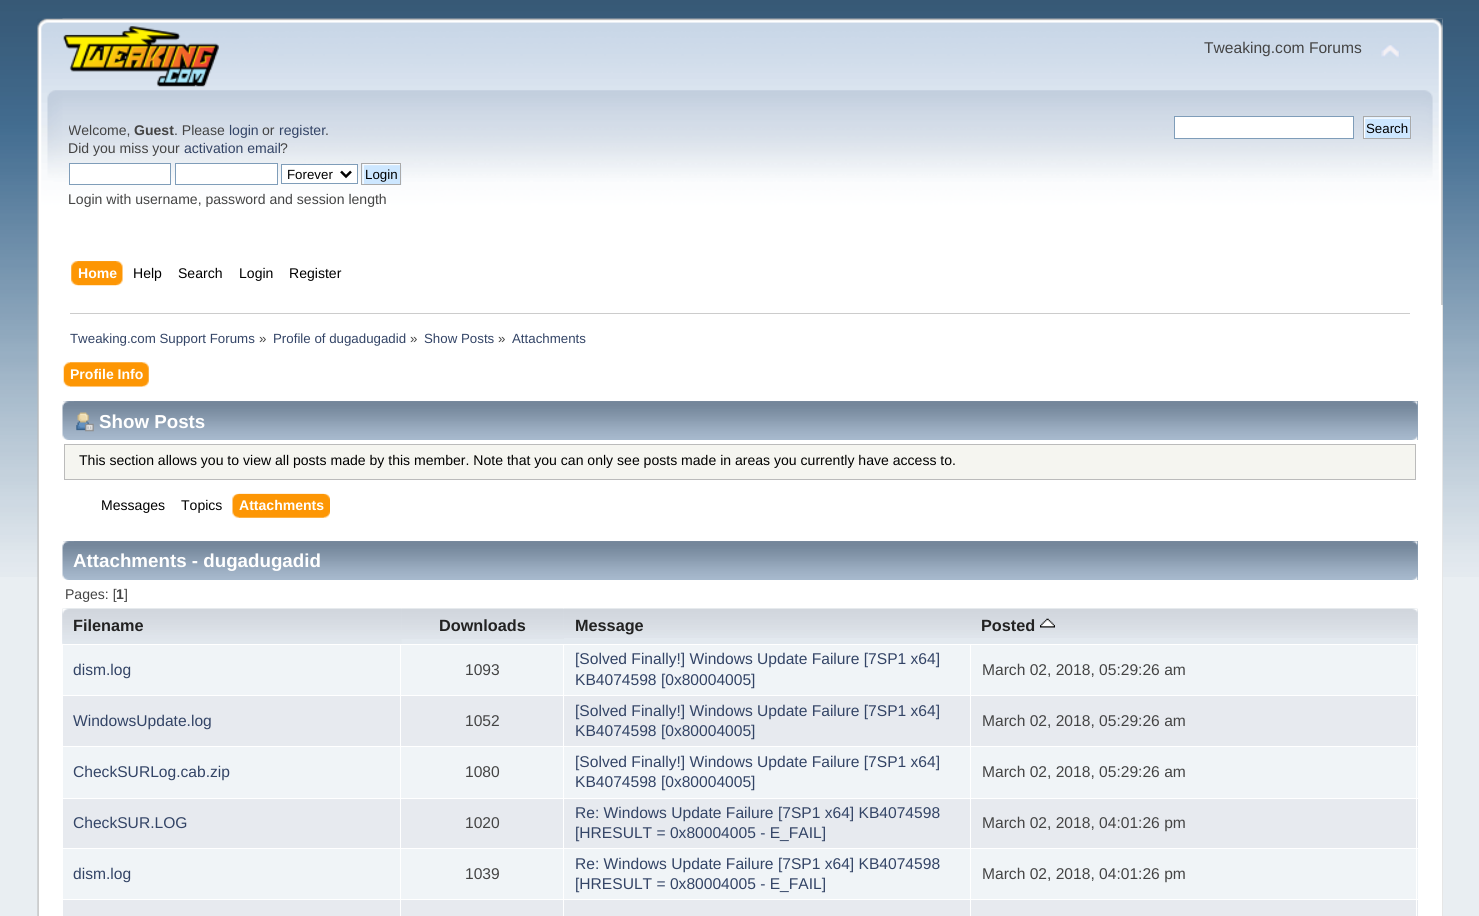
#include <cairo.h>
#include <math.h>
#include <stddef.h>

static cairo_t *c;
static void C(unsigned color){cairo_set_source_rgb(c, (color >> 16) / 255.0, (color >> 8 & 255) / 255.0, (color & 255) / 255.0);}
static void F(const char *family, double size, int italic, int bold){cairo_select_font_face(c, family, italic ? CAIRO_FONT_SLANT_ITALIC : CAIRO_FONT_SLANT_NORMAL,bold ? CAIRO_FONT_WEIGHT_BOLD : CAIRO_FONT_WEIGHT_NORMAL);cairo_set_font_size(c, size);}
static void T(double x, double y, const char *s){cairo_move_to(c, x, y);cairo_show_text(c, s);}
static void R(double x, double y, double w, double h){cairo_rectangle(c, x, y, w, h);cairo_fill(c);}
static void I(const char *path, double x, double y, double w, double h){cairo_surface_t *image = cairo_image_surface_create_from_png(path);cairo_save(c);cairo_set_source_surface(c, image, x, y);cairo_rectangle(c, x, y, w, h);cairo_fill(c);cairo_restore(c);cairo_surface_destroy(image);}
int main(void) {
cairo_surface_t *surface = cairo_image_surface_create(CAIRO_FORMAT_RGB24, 1479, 916);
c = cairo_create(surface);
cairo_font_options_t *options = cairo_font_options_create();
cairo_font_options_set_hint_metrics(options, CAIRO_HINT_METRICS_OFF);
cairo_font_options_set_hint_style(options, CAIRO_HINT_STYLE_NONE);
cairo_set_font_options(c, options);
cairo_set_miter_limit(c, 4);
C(0xe9eef2);
cairo_paint(c);
I("1.png",0,0,1479,577);
I("2.png",37,18,1406,287);
I("3.png",62,18,1381,287);
I("4.png",63,26,156,61);
F("Liberation Sans",15.6,0,0);
C(0x444444);
T(1204,53,"Tweaking.com Forums");
I("5.png",1381,45,19,13);
cairo_save(c);
cairo_rectangle(c,69,116,671,98);
cairo_clip(c);
F("Liberation Sans",14.05,0,0);
T(68,135,"Welcome,");
cairo_restore(c);
F("Liberation Sans",14.05,0,1);
T(134,135,"Guest");
F("Liberation Sans",14.05,0,0);
T(174,135,". Please");
C(0x334466);
T(229,135,"login");
C(0x444444);
T(262,135,"or");
C(0x334466);
T(279,135,"register");
C(0x444444);
T(325,135,".");
T(68,153,"Did you miss your");
C(0x334466);
T(184,153,"activation email");
C(0x444444);
T(280,153,"?");
C(0xffffff);
cairo_rectangle(c,69.5,163.5,101,21);
cairo_fill_preserve(c);
C(0x7f9db9);
cairo_set_line_width(c,1);
cairo_stroke(c);
C(0xffffff);
cairo_rectangle(c,175.5,163.5,102,21);
cairo_fill_preserve(c);
C(0x7f9db9);
cairo_stroke(c);
C(0xffffff);
cairo_rectangle(c,281.5,164.5,76,19);
cairo_fill_preserve(c);
C(0x7f9db9);
cairo_stroke(c);
cairo_new_path(c);
cairo_move_to(c,341,171.5);
cairo_line_to(c,346,176.5);
cairo_line_to(c,351,171.5);
C(0x000000);
cairo_set_line_width(c,2.5);
cairo_stroke(c);
F("Liberation Sans",13.3,0,0);
T(287,179,"Forever");
C(0xcde7ff);
R(362,164,1,20);
I("6.png",362,163,40,22);
cairo_rectangle(c,361.5,163.5,39,21);
C(0xaaaaaa);
cairo_set_line_width(c,1);
cairo_stroke(c);
C(0x000000);
T(365,179,"Login");
F("Liberation Sans",14.05,0,0);
C(0x444444);
T(68,204,"Login with username, password and session length");
C(0xffffff);
cairo_rectangle(c,1174.5,116.5,179,22);
cairo_fill_preserve(c);
C(0x7f9db9);
cairo_stroke(c);
C(0xcde7ff);
R(1364,117,46,1);
I("7.png",1364,117,48,22);
cairo_rectangle(c,1363.5,116.5,47,22);
C(0xaaaaaa);
cairo_stroke(c);
F("Liberation Sans",13.3,0,0);
C(0x000000);
T(1366,133,"Search");
I("8.png",77,261,46,25);
I("9.png",71,261,46,25);
F("Liberation Sans",14.05,0,1);
C(0xffffff);
T(78,278,"Home");
F("Liberation Sans",14.05,0,0);
C(0x000000);
T(133,278,"Help");
T(178,278,"Search");
T(239,278,"Login");
T(289,278,"Register");
C(0xffffff);
R(39,305,1403,611);
I("10.png",37,305,2,611);
C(0xe6e6e6);
R(1442,305,1,611);
C(0xcccccc);
R(70,313,1340,1);
F("Liberation Sans",13.3,0,0);
C(0x334466);
T(70,343,"Tweaking.com Support Forums");
C(0x444444);
T(259,343,"»");
C(0x334466);
T(273,343,"Profile of dugadugadid");
C(0x444444);
T(410,343,"»");
C(0x334466);
T(424,343,"Show Posts");
C(0x444444);
T(498,343,"»");
C(0x334466);
T(512,343,"Attachments");
I("11.png",70,362,79,25);
I("12.png",63,362,80,25);
F("Liberation Sans",14.05,0,1);
C(0xffffff);
T(70,379,"Profile Info");
C(0x99abbf);
R(63,401,1355,39);
I("13.png",62,401,1356,39);
I("14.png",74,401,1344,39);
I("15.png",76,412,18,20);
F("Liberation Sans",18.75,0,1);
C(0xffffff);
T(99,428,"Show Posts");
C(0xf5f5f0);
cairo_rectangle(c,64.5,444.5,1351,35);
cairo_fill_preserve(c);
C(0xbbbbbb);
cairo_stroke(c);
F("Liberation Sans",14.05,0,0);
C(0x000000);
T(79,465,"This section allows you to view all posts made by this member. Note that you can only see posts made in areas you currently have access to.");
T(101,510,"Messages");
T(181,510,"Topics");
I("16.png",238,493,92,25);
I("17.png",232,493,92,25);
F("Liberation Sans",14.05,0,1);
C(0xffffff);
T(239,510,"Attachments");
C(0x99abbf);
R(63,541,1355,39);
I("13.png",62,541,1356,39);
I("14.png",74,541,1344,39);
F("Liberation Sans",18.75,0,1);
C(0xffffff);
T(73,567,"Attachments - dugadugadid");
F("Liberation Sans",14.05,0,0);
C(0x444444);
T(65,599,"Pages: [");
F("Liberation Sans",14.05,0,1);
T(116,599,"1");
F("Liberation Sans",14.05,0,0);
T(124,599,"]");
C(0xe3e9ef);
R(63,609,1355,35);
I("18.png",62,608,340,36);
F("Liberation Sans",16.25,0,1);
C(0x222222);
T(73,631,"Filename");
C(0xe3e9ef);
R(401,609,1,26);
I("19.png",401,608,163,31);
C(0x222222);
T(439,631,"Downloads");
I("20.png",564,608,406,30);
T(575,631,"Message");
I("21.png",970,608,448,30);
T(981,631,"Posted");
I("22.png",1040,618,15,10);
C(0xe7eaef);
R(63,900,1355,16);
C(0xf0f4f7);
R(63,645,1355,50);
C(0xe7eaef);
R(63,696,1355,50);
C(0xf0f4f7);
R(63,747,1355,51);
C(0xe7eaef);
R(63,799,1355,49);
C(0xf0f4f7);
R(63,849,1355,50);
C(0xffffff);
R(400,644,1,272);
R(563,644,1,272);
R(970,644,1,272);
R(1416,644,1,272);
F("Liberation Sans",15.6,0,0);
C(0x334466);
T(73,675,"dism.log");
C(0x444444);
T(465,675,"1093");
C(0x334466);
T(575,664,"[Solved Finally!] Windows Update Failure [7SP1 x64]");
T(575,685,"KB4074598 [0x80004005]");
C(0x444444);
T(982,675,"March 02, 2018, 05:29:26 am");
C(0x334466);
T(73,726,"WindowsUpdate.log");
C(0x444444);
T(465,726,"1052");
C(0x334466);
T(575,716,"[Solved Finally!] Windows Update Failure [7SP1 x64]");
T(575,736,"KB4074598 [0x80004005]");
C(0x444444);
T(982,726,"March 02, 2018, 05:29:26 am");
C(0x334466);
T(73,777,"CheckSURLog.cab.zip");
C(0x444444);
T(465,777,"1080");
C(0x334466);
T(575,767,"[Solved Finally!] Windows Update Failure [7SP1 x64]");
T(575,787,"KB4074598 [0x80004005]");
C(0x444444);
T(982,777,"March 02, 2018, 05:29:26 am");
C(0x334466);
T(73,828,"CheckSUR.LOG");
C(0x444444);
T(465,828,"1020");
C(0x334466);
T(575,818,"Re: Windows Update Failure [7SP1 x64] KB4074598");
T(575,838,"[HRESULT = 0x80004005 - E_FAIL]");
C(0x444444);
T(982,828,"March 02, 2018, 04:01:26 pm");
C(0x334466);
T(73,879,"dism.log");
C(0x444444);
T(465,879,"1039");
C(0x334466);
T(575,869,"Re: Windows Update Failure [7SP1 x64] KB4074598");
T(575,889,"[HRESULT = 0x80004005 - E_FAIL]");
C(0x444444);
T(982,879,"March 02, 2018, 04:01:26 pm");
cairo_surface_write_to_png(surface, "o.png");
cairo_font_options_destroy(options);
cairo_destroy(c);
cairo_surface_destroy(surface);
return 0;
}
